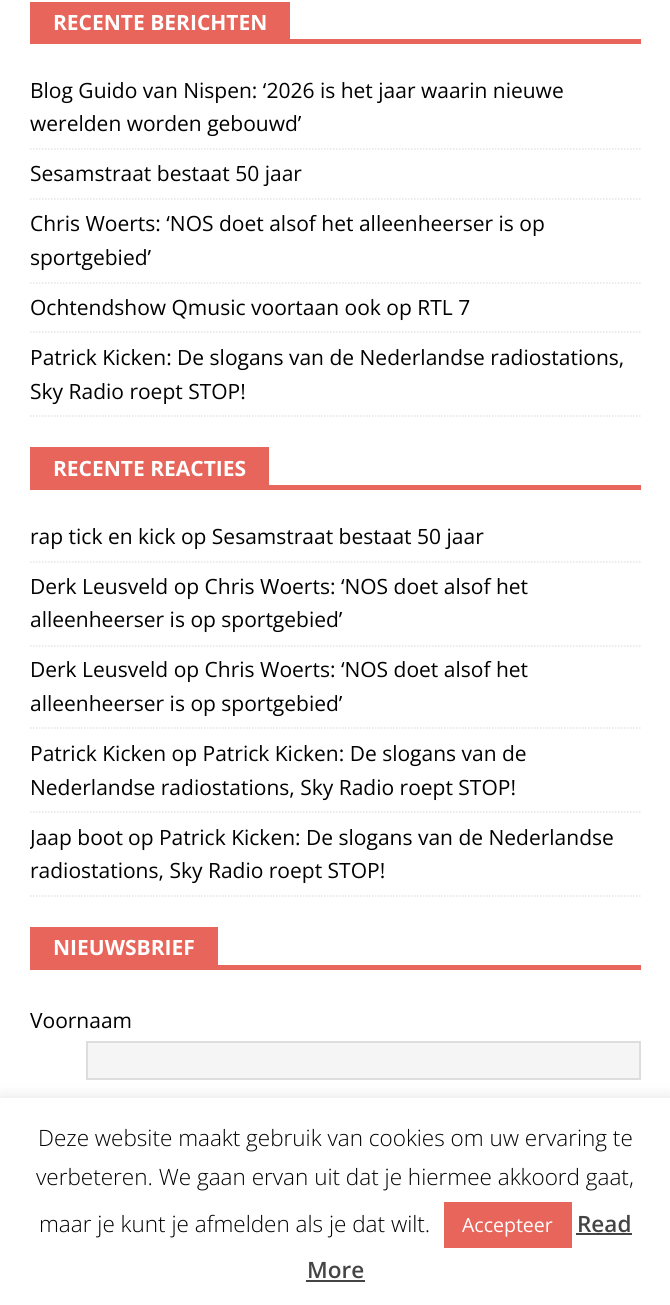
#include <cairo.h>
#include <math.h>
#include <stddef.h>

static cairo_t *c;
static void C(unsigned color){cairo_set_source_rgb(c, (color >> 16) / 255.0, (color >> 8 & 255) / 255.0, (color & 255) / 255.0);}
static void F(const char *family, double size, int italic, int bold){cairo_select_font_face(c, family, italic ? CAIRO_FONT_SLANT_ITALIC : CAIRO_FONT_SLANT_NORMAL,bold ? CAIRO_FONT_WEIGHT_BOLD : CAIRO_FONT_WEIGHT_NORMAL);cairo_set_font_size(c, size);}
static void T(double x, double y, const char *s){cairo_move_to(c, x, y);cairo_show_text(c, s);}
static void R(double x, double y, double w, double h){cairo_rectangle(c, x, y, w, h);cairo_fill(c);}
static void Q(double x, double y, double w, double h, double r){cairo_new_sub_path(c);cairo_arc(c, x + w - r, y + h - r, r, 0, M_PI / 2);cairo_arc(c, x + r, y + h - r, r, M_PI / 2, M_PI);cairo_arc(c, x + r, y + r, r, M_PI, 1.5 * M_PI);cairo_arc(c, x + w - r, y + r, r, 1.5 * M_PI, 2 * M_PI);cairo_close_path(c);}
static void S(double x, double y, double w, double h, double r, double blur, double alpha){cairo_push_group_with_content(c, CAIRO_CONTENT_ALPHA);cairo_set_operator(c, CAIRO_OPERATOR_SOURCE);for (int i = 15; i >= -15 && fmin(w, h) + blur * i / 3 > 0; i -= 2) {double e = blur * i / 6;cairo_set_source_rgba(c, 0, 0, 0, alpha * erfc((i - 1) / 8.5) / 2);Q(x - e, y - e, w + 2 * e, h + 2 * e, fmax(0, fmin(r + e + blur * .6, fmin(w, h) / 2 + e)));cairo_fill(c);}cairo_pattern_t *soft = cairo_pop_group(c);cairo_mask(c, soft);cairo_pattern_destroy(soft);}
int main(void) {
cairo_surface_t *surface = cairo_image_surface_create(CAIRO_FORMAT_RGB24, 670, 1305);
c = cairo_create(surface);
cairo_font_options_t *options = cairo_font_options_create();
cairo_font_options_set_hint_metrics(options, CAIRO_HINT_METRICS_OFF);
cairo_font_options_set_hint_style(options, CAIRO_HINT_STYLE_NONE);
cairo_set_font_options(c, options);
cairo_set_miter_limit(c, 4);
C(0xffffff);
cairo_paint(c);
C(0xe8655b);
R(30,39,611,5);
R(30,2,260,37);
F("Open Sans",21,0,1);
C(0xffffff);
T(53,30,"RECENTE BERICHTEN");
cairo_new_path(c);
cairo_move_to(c,30,149);
cairo_line_to(c,640.5,149);
C(0xe5e5e5);
cairo_set_line_width(c,1.5);
cairo_set_dash(c,(double[]){1.5,1.5},2,0);
cairo_stroke(c);
F("Open Sans",21,0,0);
C(0x000000);
T(30,98,"Blog Guido van Nispen: ‘2026 is het jaar waarin nieuwe");
T(30,131,"werelden worden gebouwd’");
cairo_new_path(c);
cairo_move_to(c,30,199);
cairo_line_to(c,640.5,199);
C(0xe5e5e5);
cairo_stroke(c);
C(0x000000);
T(30,181,"Sesamstraat bestaat 50 jaar");
cairo_new_path(c);
cairo_move_to(c,30,283);
cairo_line_to(c,640.5,283);
C(0xe5e5e5);
cairo_stroke(c);
C(0x000000);
T(30,231,"Chris Woerts: ‘NOS doet alsof het alleenheerser is op");
T(30,265,"sportgebied’");
cairo_new_path(c);
cairo_move_to(c,30,332);
cairo_line_to(c,640.5,332);
C(0xe5e5e5);
cairo_stroke(c);
C(0x000000);
T(30,315,"Ochtendshow Qmusic voortaan ook op RTL 7");
cairo_new_path(c);
cairo_move_to(c,30,416);
cairo_line_to(c,640.5,416);
C(0xe5e5e5);
cairo_stroke(c);
C(0x000000);
T(30,365,"Patrick Kicken: De slogans van de Nederlandse radiostations,");
T(30,399,"Sky Radio roept STOP!");
C(0xe8655b);
R(30,485,611,5);
R(30,447,239,38);
F("Open Sans",21,0,1);
C(0xffffff);
T(53,476,"RECENTE REACTIES");
cairo_new_path(c);
cairo_move_to(c,30,562);
cairo_line_to(c,640.5,562);
C(0xe5e5e5);
cairo_stroke(c);
F("Open Sans",21,0,0);
C(0x000000);
T(30,544,"rap tick en kick op Sesamstraat bestaat 50 jaar");
cairo_new_path(c);
cairo_move_to(c,30,646);
cairo_line_to(c,640.5,646);
C(0xe5e5e5);
cairo_stroke(c);
C(0x000000);
T(30,594,"Derk Leusveld op Chris Woerts: ‘NOS doet alsof het");
T(30,627,"alleenheerser is op sportgebied’");
cairo_new_path(c);
cairo_move_to(c,30,728);
cairo_line_to(c,640.5,728);
C(0xe5e5e5);
cairo_stroke(c);
C(0x000000);
T(30,677,"Derk Leusveld op Chris Woerts: ‘NOS doet alsof het");
T(30,711,"alleenheerser is op sportgebied’");
cairo_new_path(c);
cairo_move_to(c,30,812);
cairo_line_to(c,640.5,812);
C(0xe5e5e5);
cairo_stroke(c);
C(0x000000);
T(30,761,"Patrick Kicken op Patrick Kicken: De slogans van de");
T(30,795,"Nederlandse radiostations, Sky Radio roept STOP!");
cairo_new_path(c);
cairo_move_to(c,30,896);
cairo_line_to(c,640.5,896);
C(0xe5e5e5);
cairo_stroke(c);
cairo_save(c);
cairo_rectangle(c,30,447,611,450);
cairo_clip(c);
C(0x000000);
T(30,845,"Jaap boot");
cairo_restore(c);
C(0x000000);
T(128,845,"op Patrick Kicken: De slogans van de Nederlandse");
T(30,878,"radiostations, Sky Radio roept STOP!");
C(0xe8655b);
R(30,965,611,5);
R(30,927,188,38);
F("Open Sans",21,0,1);
C(0xffffff);
T(53,955,"NIEUWSBRIEF");
F("Open Sans",21,0,0);
C(0x000000);
T(30,1028,"Voornaam");
C(0xf5f5f5);
cairo_rectangle(c,87,1042,553,37);
cairo_fill_preserve(c);
C(0xdddddd);
cairo_set_line_width(c,2);
cairo_set_dash(c,NULL,0,0);
cairo_stroke(c);
C(0xacabab);
S(0,1097,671,207,0,7.5,.3);
C(0xffffff);
R(0,1098,670,207);
F("Open Sans Light",22.5,0,0);
C(0x000000);
T(38,1146,"Deze website maakt gebruik van cookies om uw ervaring te");
T(36,1185,"verbeteren. We gaan ervan uit dat je hiermee akkoord gaat,");
T(39,1232,"maar je kunt je afmelden als je dat wilt.");
C(0xe8655b);
R(444,1202,128,46);
F("Open Sans",19.5,0,0);
C(0xffffff);
T(462,1232,"Accepteer");
F("Open Sans SemiBold",22.5,0,0);
C(0x444444);
T(577,1232,"Read");
R(576,1233,56,2);
T(307,1278,"More");
R(306,1280,59,2);
cairo_surface_write_to_png(surface, "o.png");
cairo_font_options_destroy(options);
cairo_destroy(c);
cairo_surface_destroy(surface);
return 0;
}
